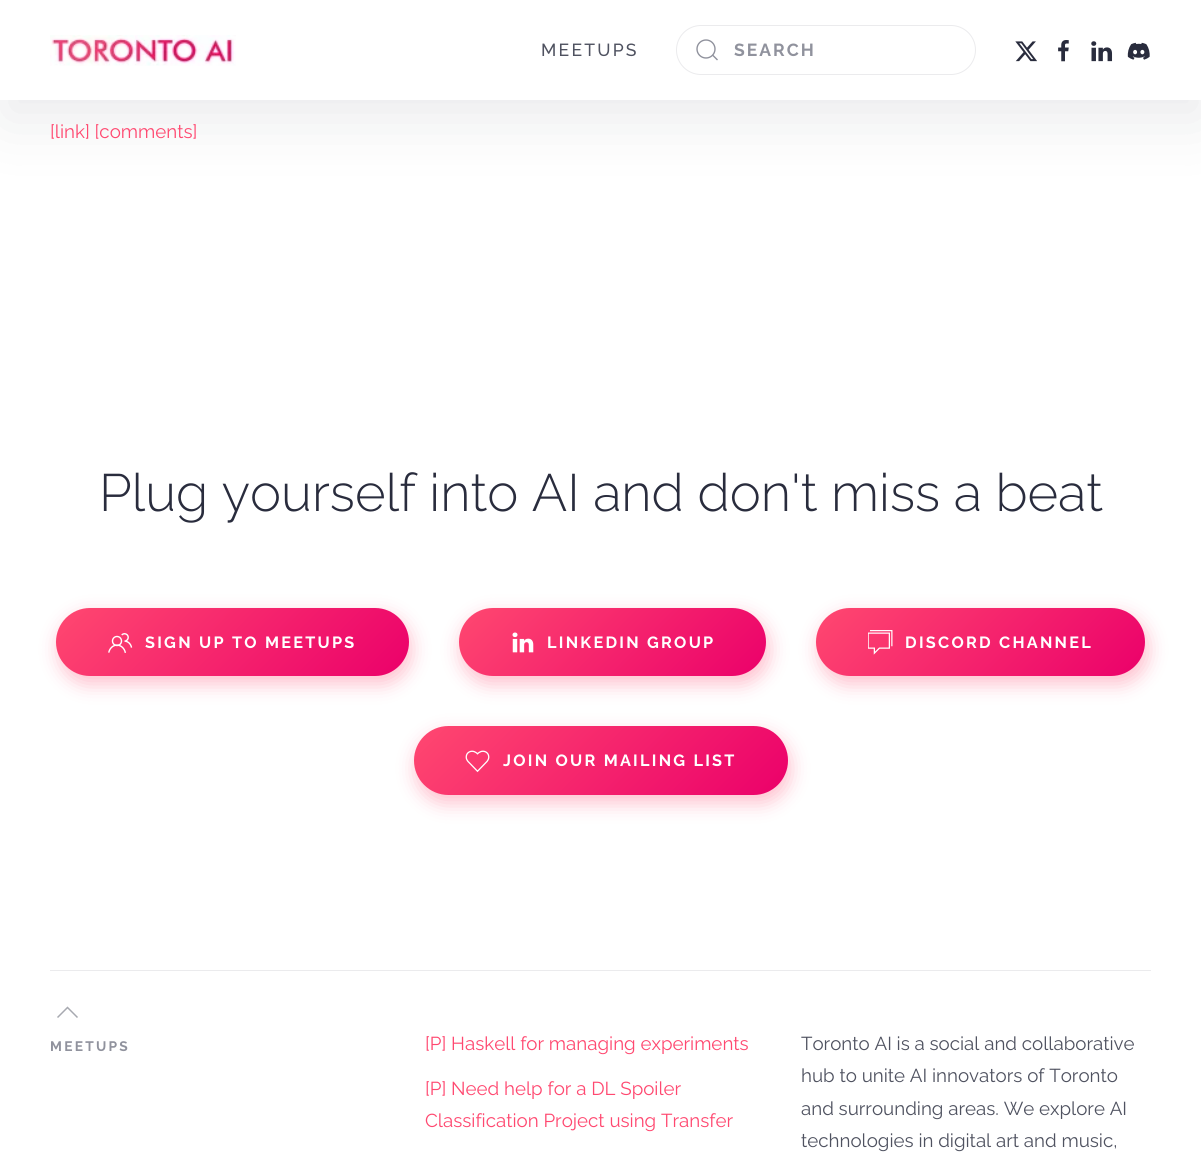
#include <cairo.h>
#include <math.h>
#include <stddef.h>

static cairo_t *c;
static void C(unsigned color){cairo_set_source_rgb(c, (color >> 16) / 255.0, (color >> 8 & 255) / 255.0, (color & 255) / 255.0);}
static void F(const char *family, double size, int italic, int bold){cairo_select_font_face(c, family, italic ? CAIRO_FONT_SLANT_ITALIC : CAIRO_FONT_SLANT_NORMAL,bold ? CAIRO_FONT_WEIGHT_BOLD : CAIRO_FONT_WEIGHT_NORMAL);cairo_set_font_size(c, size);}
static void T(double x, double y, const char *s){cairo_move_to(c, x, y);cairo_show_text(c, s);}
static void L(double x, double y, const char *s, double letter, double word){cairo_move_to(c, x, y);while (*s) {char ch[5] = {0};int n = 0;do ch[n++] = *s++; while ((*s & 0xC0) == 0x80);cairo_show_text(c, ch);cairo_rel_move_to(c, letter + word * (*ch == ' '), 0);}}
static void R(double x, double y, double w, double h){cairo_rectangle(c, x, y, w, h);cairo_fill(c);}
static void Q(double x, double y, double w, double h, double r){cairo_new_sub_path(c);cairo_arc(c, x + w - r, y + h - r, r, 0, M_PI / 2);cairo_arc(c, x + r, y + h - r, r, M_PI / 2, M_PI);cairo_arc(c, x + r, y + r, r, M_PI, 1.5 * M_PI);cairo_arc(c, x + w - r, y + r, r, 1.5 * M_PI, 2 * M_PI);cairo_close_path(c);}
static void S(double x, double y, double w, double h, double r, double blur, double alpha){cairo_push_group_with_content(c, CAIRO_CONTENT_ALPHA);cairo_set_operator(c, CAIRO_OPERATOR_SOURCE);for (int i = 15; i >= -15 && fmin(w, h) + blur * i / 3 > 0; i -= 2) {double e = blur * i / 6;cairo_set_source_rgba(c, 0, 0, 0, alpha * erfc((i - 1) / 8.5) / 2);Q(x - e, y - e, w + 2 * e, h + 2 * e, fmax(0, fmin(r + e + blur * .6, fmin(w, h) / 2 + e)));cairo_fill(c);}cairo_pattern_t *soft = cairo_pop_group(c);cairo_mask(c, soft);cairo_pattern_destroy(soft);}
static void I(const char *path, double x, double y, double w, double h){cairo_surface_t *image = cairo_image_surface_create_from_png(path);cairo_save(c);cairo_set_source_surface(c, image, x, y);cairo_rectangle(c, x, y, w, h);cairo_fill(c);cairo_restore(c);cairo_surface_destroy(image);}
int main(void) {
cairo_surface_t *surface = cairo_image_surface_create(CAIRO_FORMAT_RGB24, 1201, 1156);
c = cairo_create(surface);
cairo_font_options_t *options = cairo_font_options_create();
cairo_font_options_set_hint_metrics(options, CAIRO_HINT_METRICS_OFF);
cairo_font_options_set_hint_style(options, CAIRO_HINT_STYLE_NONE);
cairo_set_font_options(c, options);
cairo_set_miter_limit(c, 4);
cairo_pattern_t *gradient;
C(0xffffff);
cairo_paint(c);
C(0x292c3d);
S(3,19,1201,100,0,31,.1);
C(0xffffff);
R(0,0,1201,100);
I("1.png",50,35,186,31);
F("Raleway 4 Thin",17.5,0,0);
C(0x4f5260);
L(541,56,"MEETUPS",2.25,0);
Q(676.5,25.5,299,49,24.5);
C(0xebebed);
cairo_set_line_width(c,1);
cairo_stroke(c);
cairo_arc(c,706,49,9,0,2 * M_PI);
C(0x90929d);
cairo_set_line_width(c,1.4);
cairo_stroke(c);
cairo_new_path(c);
cairo_move_to(c,712.5,55);
cairo_line_to(c,717.5,60);
cairo_close_path(c);
cairo_stroke(c);
F("Raleway Thin",17.5,0,0);
L(734,56,"SEARCH",2,0);
I("2.png",1015,41,22,21);
I("3.png",1058,40,11,22);
I("4.png",1091,41,22,21);
I("5.png",1127,42,23,18);
F("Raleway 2 Thin",18.75,0,0);
C(0xff4870);
T(50,138,"[link] [comments]");
F("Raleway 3 Thin",52.5,0,0);
C(0x292c3d);
T(99,511,"Plug yourself into AI and don't miss a beat");
C(0xff4870);
S(59,615,352,69,34.5,9.5,.35);
gradient = cairo_pattern_create_linear(127,537,338,747);
cairo_pattern_add_color_stop_rgba(gradient,0,1,0.282,0.439,1);
cairo_pattern_add_color_stop_rgba(gradient,1,0.922,0,0.416,1);
cairo_set_source(c,gradient);
cairo_pattern_destroy(gradient);
Q(56,608,353,68,34);
cairo_fill(c);
I("6.png",108,633,25,20);
F("Raleway Thin",16.25,0,0);
C(0xffffff);
L(145,648,"SIGN UP TO MEETUPS",2.25,0);
C(0xff4870);
S(461,615,308,69,34.5,9.5,.35);
gradient = cairo_pattern_create_linear(518,548,707,736);
cairo_pattern_add_color_stop_rgba(gradient,0,1,0.282,0.439,1);
cairo_pattern_add_color_stop_rgba(gradient,1,0.922,0,0.416,1);
cairo_set_source(c,gradient);
cairo_pattern_destroy(gradient);
Q(459,608,307,68,34);
cairo_fill(c);
I("7.png",512,632,22,21);
C(0xffffff);
L(547,648,"LINKEDIN GROUP",2.25,0);
C(0xff4870);
S(819,615,329,69,34.5,9.5,.35);
gradient = cairo_pattern_create_linear(881,543,1080,741);
cairo_pattern_add_color_stop_rgba(gradient,0,1,0.282,0.439,1);
cairo_pattern_add_color_stop_rgba(gradient,1,0.922,0,0.416,1);
cairo_set_source(c,gradient);
cairo_pattern_destroy(gradient);
Q(816,608,329,68,34);
cairo_fill(c);
I("8.png",868,630,25,25);
C(0xffffff);
L(905,648,"DISCORD CHANNEL",2.25,0);
C(0xff4870);
S(416,734,374,69,34.5,9.5,.35);
gradient = cairo_pattern_create_linear(490,650,711,871);
cairo_pattern_add_color_stop_rgba(gradient,0,1,0.282,0.439,1);
cairo_pattern_add_color_stop_rgba(gradient,1,0.922,0,0.416,1);
cairo_set_source(c,gradient);
cairo_pattern_destroy(gradient);
Q(414,726,374,69,34.5);
cairo_fill(c);
I("9.png",465,750,25,23);
C(0xffffff);
L(503,766,"JOIN OUR MAILING LIST",2.25,0);
C(0xebebed);
R(50,970,1101,1);
cairo_new_path(c);
cairo_move_to(c,57.5,1017.5);
cairo_line_to(c,67.5,1007.5);
cairo_line_to(c,77.5,1017.5);
C(0xa7a9b0);
cairo_set_line_width(c,1.5);
cairo_stroke(c);
F("Raleway Thin",13.75,0,0);
C(0x90929d);
L(50,1051,"MEETUPS",2.25,0);
F("Raleway 2 Thin",18.75,0,0);
C(0xff4870);
T(425,1050,"[P] Haskell for managing experiments");
T(425,1095,"[P] Need help for a DL Spoiler");
T(425,1127,"Classification Project using Transfer");
C(0x4f5260);
T(801,1050,"Toronto AI is a social and collaborative");
T(801,1082,"hub to unite AI innovators of Toronto");
T(801,1115,"and surrounding areas. We explore AI");
T(801,1147,"technologies in digital art and music,");
cairo_surface_write_to_png(surface, "o.png");
cairo_font_options_destroy(options);
cairo_destroy(c);
cairo_surface_destroy(surface);
return 0;
}
